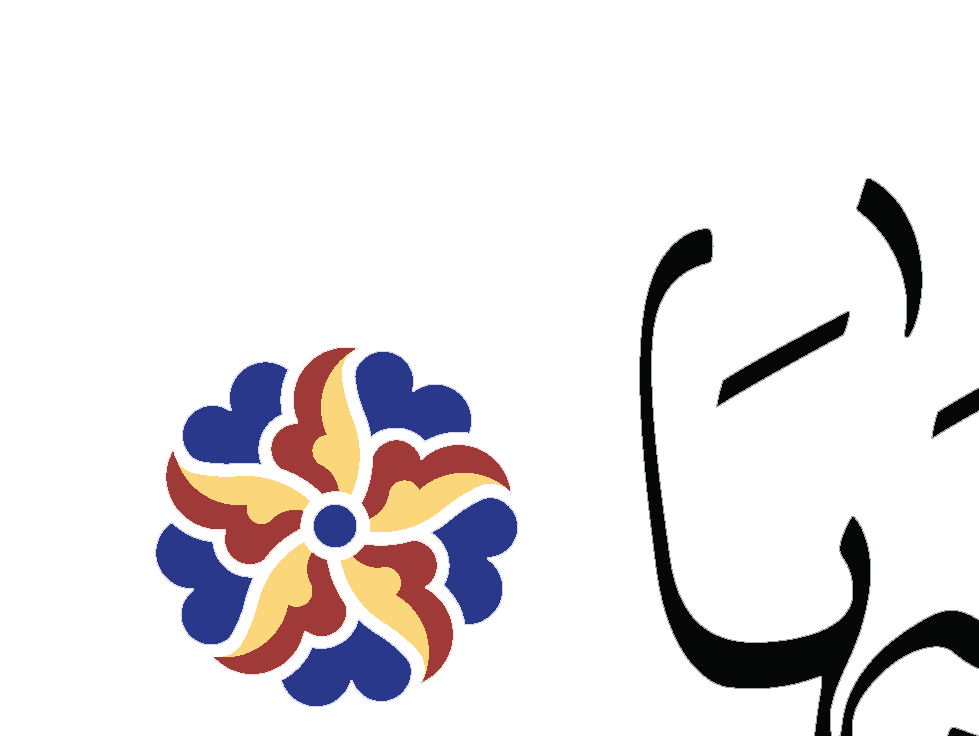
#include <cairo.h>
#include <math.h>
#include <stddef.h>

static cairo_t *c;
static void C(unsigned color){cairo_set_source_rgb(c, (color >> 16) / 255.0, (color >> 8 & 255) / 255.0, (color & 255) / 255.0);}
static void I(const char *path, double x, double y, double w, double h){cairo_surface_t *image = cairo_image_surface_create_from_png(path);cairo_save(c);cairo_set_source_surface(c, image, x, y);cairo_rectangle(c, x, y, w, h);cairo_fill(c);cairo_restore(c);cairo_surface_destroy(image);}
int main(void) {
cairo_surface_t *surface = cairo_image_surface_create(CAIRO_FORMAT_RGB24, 979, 736);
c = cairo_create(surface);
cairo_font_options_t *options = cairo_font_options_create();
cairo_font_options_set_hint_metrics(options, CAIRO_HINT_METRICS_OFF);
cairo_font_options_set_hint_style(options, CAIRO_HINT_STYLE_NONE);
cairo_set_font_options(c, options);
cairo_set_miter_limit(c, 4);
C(0xffffff);
cairo_paint(c);
I("1.png",155,178,824,558);
cairo_surface_write_to_png(surface, "o.png");
cairo_font_options_destroy(options);
cairo_destroy(c);
cairo_surface_destroy(surface);
return 0;
}
